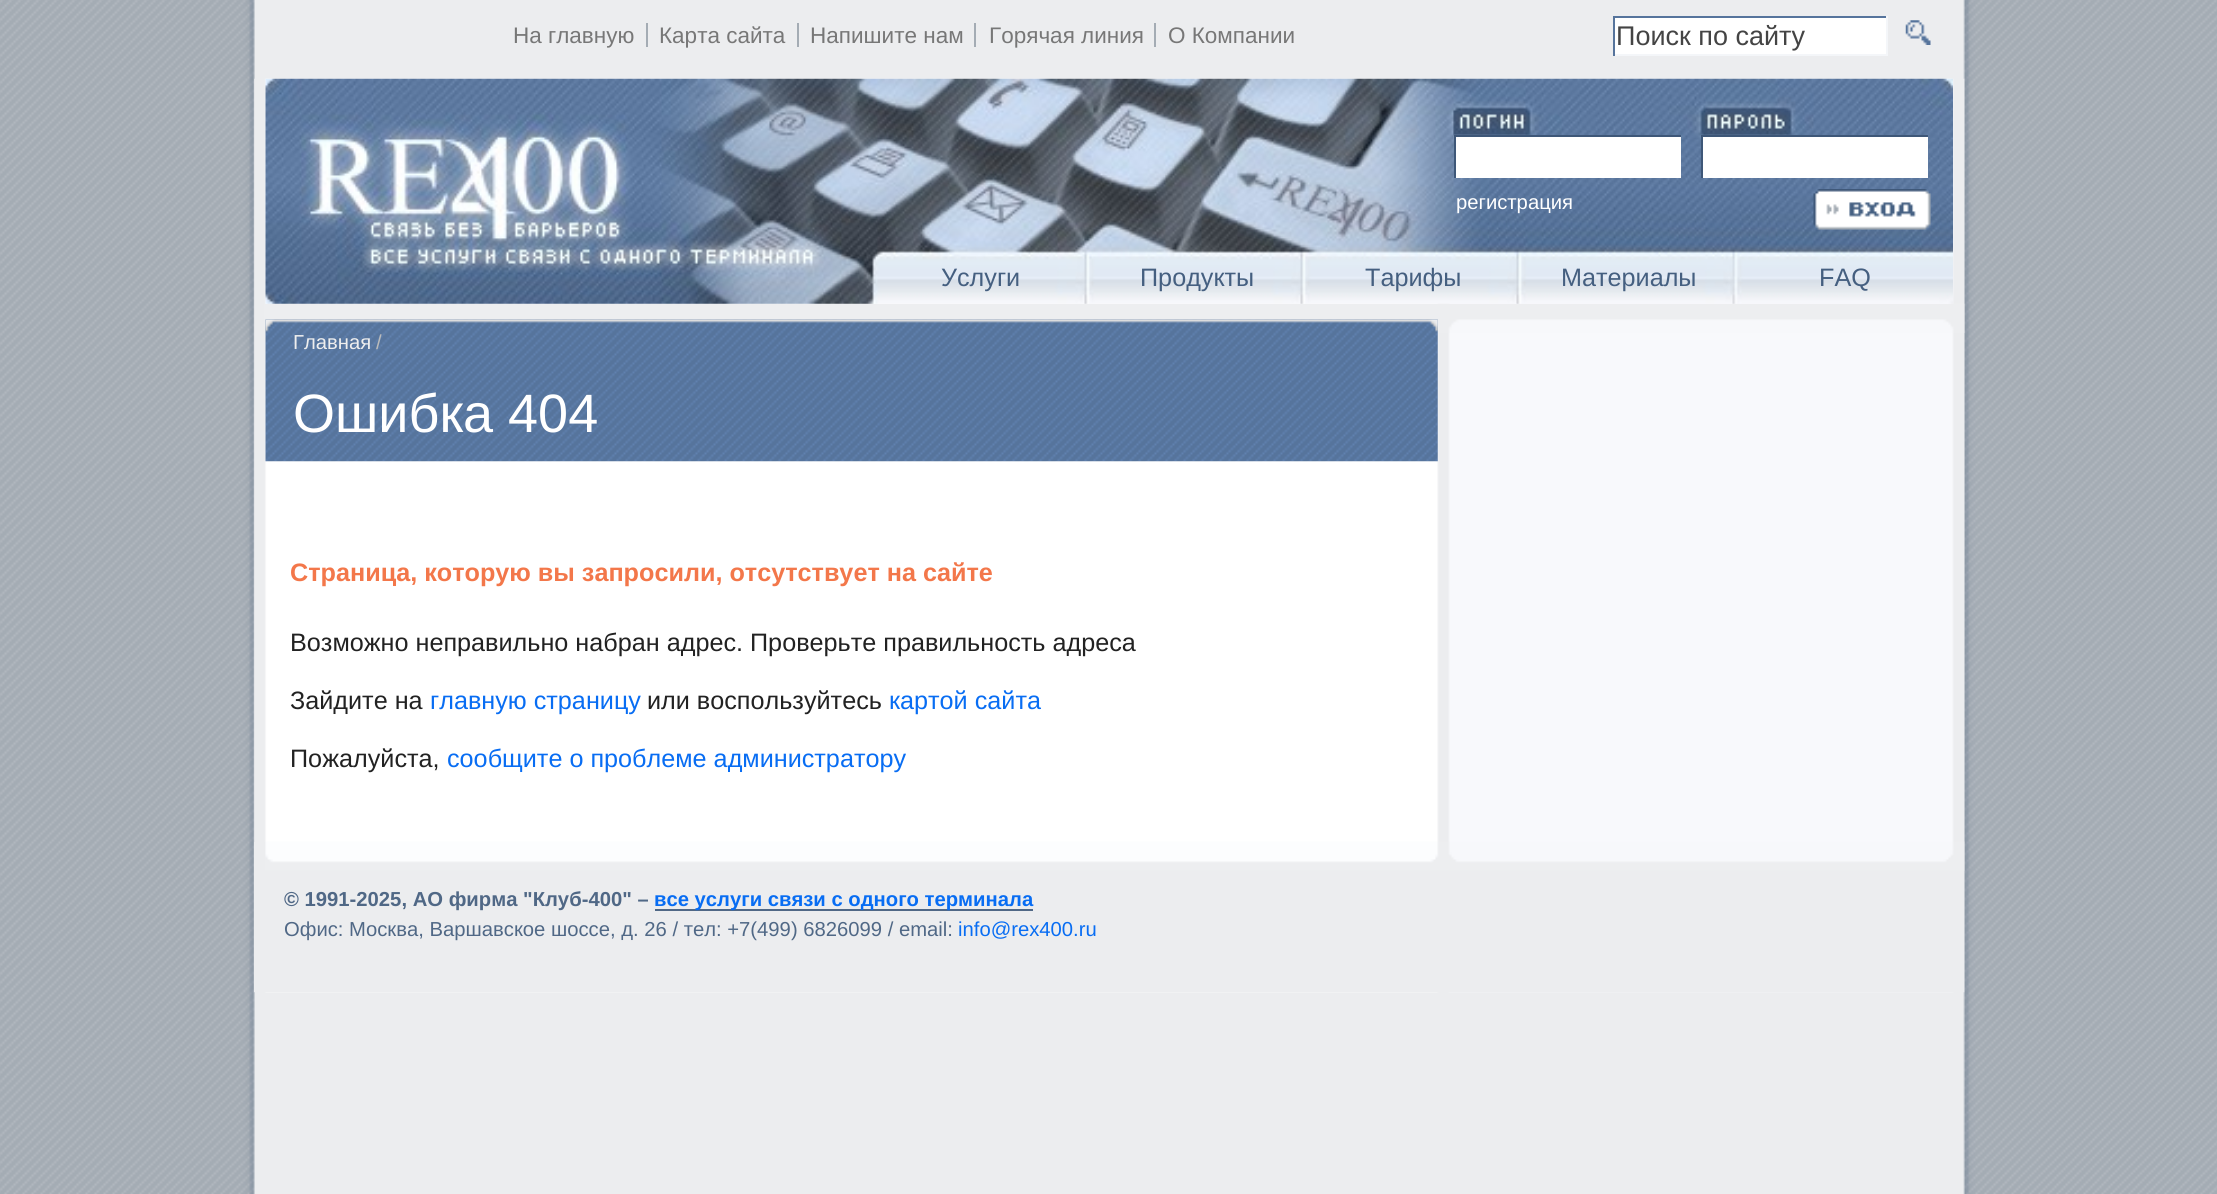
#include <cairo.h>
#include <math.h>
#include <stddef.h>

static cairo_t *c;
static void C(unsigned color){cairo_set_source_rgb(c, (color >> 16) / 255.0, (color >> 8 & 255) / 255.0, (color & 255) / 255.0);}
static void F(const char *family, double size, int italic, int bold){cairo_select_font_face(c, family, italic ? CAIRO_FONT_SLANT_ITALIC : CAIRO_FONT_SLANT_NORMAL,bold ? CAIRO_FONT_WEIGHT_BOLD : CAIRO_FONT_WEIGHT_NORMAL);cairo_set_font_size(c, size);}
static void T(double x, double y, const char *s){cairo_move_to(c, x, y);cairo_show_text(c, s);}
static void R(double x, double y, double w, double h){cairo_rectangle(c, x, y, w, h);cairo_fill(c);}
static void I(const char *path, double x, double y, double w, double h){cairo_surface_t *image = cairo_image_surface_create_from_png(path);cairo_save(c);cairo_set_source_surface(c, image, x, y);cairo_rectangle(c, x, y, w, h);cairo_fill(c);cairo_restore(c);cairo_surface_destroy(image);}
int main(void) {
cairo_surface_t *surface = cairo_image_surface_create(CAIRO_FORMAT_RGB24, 2217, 1194);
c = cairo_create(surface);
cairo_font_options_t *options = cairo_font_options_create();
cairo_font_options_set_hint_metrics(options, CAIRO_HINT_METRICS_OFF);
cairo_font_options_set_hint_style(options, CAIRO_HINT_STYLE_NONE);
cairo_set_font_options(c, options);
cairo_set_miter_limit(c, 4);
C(0xffffff);
cairo_paint(c);
I("1.png",0,0,2217,1194);
I("2.png",254,78,1711,915);
I("3.png",265,303,1700,30);
F("Liberation Sans",22.5,0,0);
C(0x777777);
T(513,43,"На главную");
C(0xa4acb4);
R(646,23,2,24);
C(0x777777);
T(659,43,"Карта сайта");
C(0xa4acb4);
R(797,23,2,24);
C(0x777777);
T(810,43,"Напишите нам");
C(0xa4acb4);
R(974,23,2,24);
C(0x777777);
T(989,43,"Горячая линия");
C(0xa4acb4);
R(1154,23,2,24);
C(0x777777);
T(1168,43,"О Компании");
C(0xffffff);
R(1615,18,271,36);
C(0x56749c);
R(1613,16,275,2);
C(0xf4f6f9);
R(1886,16,2,40);
R(1613,54,275,2);
C(0x56749c);
R(1613,16,2,40);
F("Liberation Sans",27,0,0);
C(0x444444);
T(1616,45,"Поиск по сайту");
I("4.png",1905,20,26,25);
I("5.png",265,319,1173,143);
I("6.png",265,319,1173,13);
F("Liberation Sans",20.25,0,0);
C(0xeeeeee);
T(293,349,"Главная");
C(0xbbbbbb);
T(376,349,"/");
F("Liberation Sans",54,0,0);
C(0xffffff);
T(293,432,"Ошибка 404");
F("Liberation Sans",25.2,0,1);
C(0xf3774a);
T(290,581,"Страница, которую вы запросили, отсутствует на сайте");
F("Liberation Sans",25.2,0,0);
C(0x222222);
T(290,651,"Возможно неправильно набран адрес. Проверьте правильность адреса");
T(290,709,"Зайдите на");
C(0x086df3);
T(430,709,"главную страницу");
C(0x222222);
T(647,709,"или воспользуйтесь");
C(0x086df3);
T(889,709,"картой сайта");
C(0x222222);
T(290,767,"Пожалуйста,");
C(0x086df3);
T(447,767,"сообщите о проблеме администратору");
C(0xecedef);
R(254,842,1700,150);
I("7.png",265,841,1700,30);
F("Liberation Sans",20.25,0,1);
C(0x506886);
T(284,906,"© 1991-2025, АО фирма \"Клуб-400\" –");
R(655,909,378,2);
C(0x086df3);
T(654,906,"все услуги связи с одного терминала");
F("Liberation Sans",20.25,0,0);
C(0x506886);
T(284,936,"Офис: Москва, Варшавское шоссе, д. 26 / тел: +7(499) 6826099 / email:");
C(0x086df3);
T(958,936,"info@rex400.ru");
I("8.png",265,78,1688,226);
C(0xffffff);
R(1456,137,225,41);
C(0x3e5778);
R(1454,135,227,2);
R(1454,135,2,43);
C(0xffffff);
R(1703,137,225,41);
C(0x3e5778);
R(1701,135,227,2);
R(1701,135,2,43);
I("9.png",1813,189,118,41);
C(0xffffff);
T(1456,209,"регистрация");
F("Liberation Sans",25.2,0,0);
C(0x455f80);
T(941,286,"Услуги");
T(1140,286,"Продукты");
T(1365,286,"Тарифы");
T(1561,286,"Материалы");
T(1819,286,"FAQ");
cairo_surface_write_to_png(surface, "o.png");
cairo_font_options_destroy(options);
cairo_destroy(c);
cairo_surface_destroy(surface);
return 0;
}
